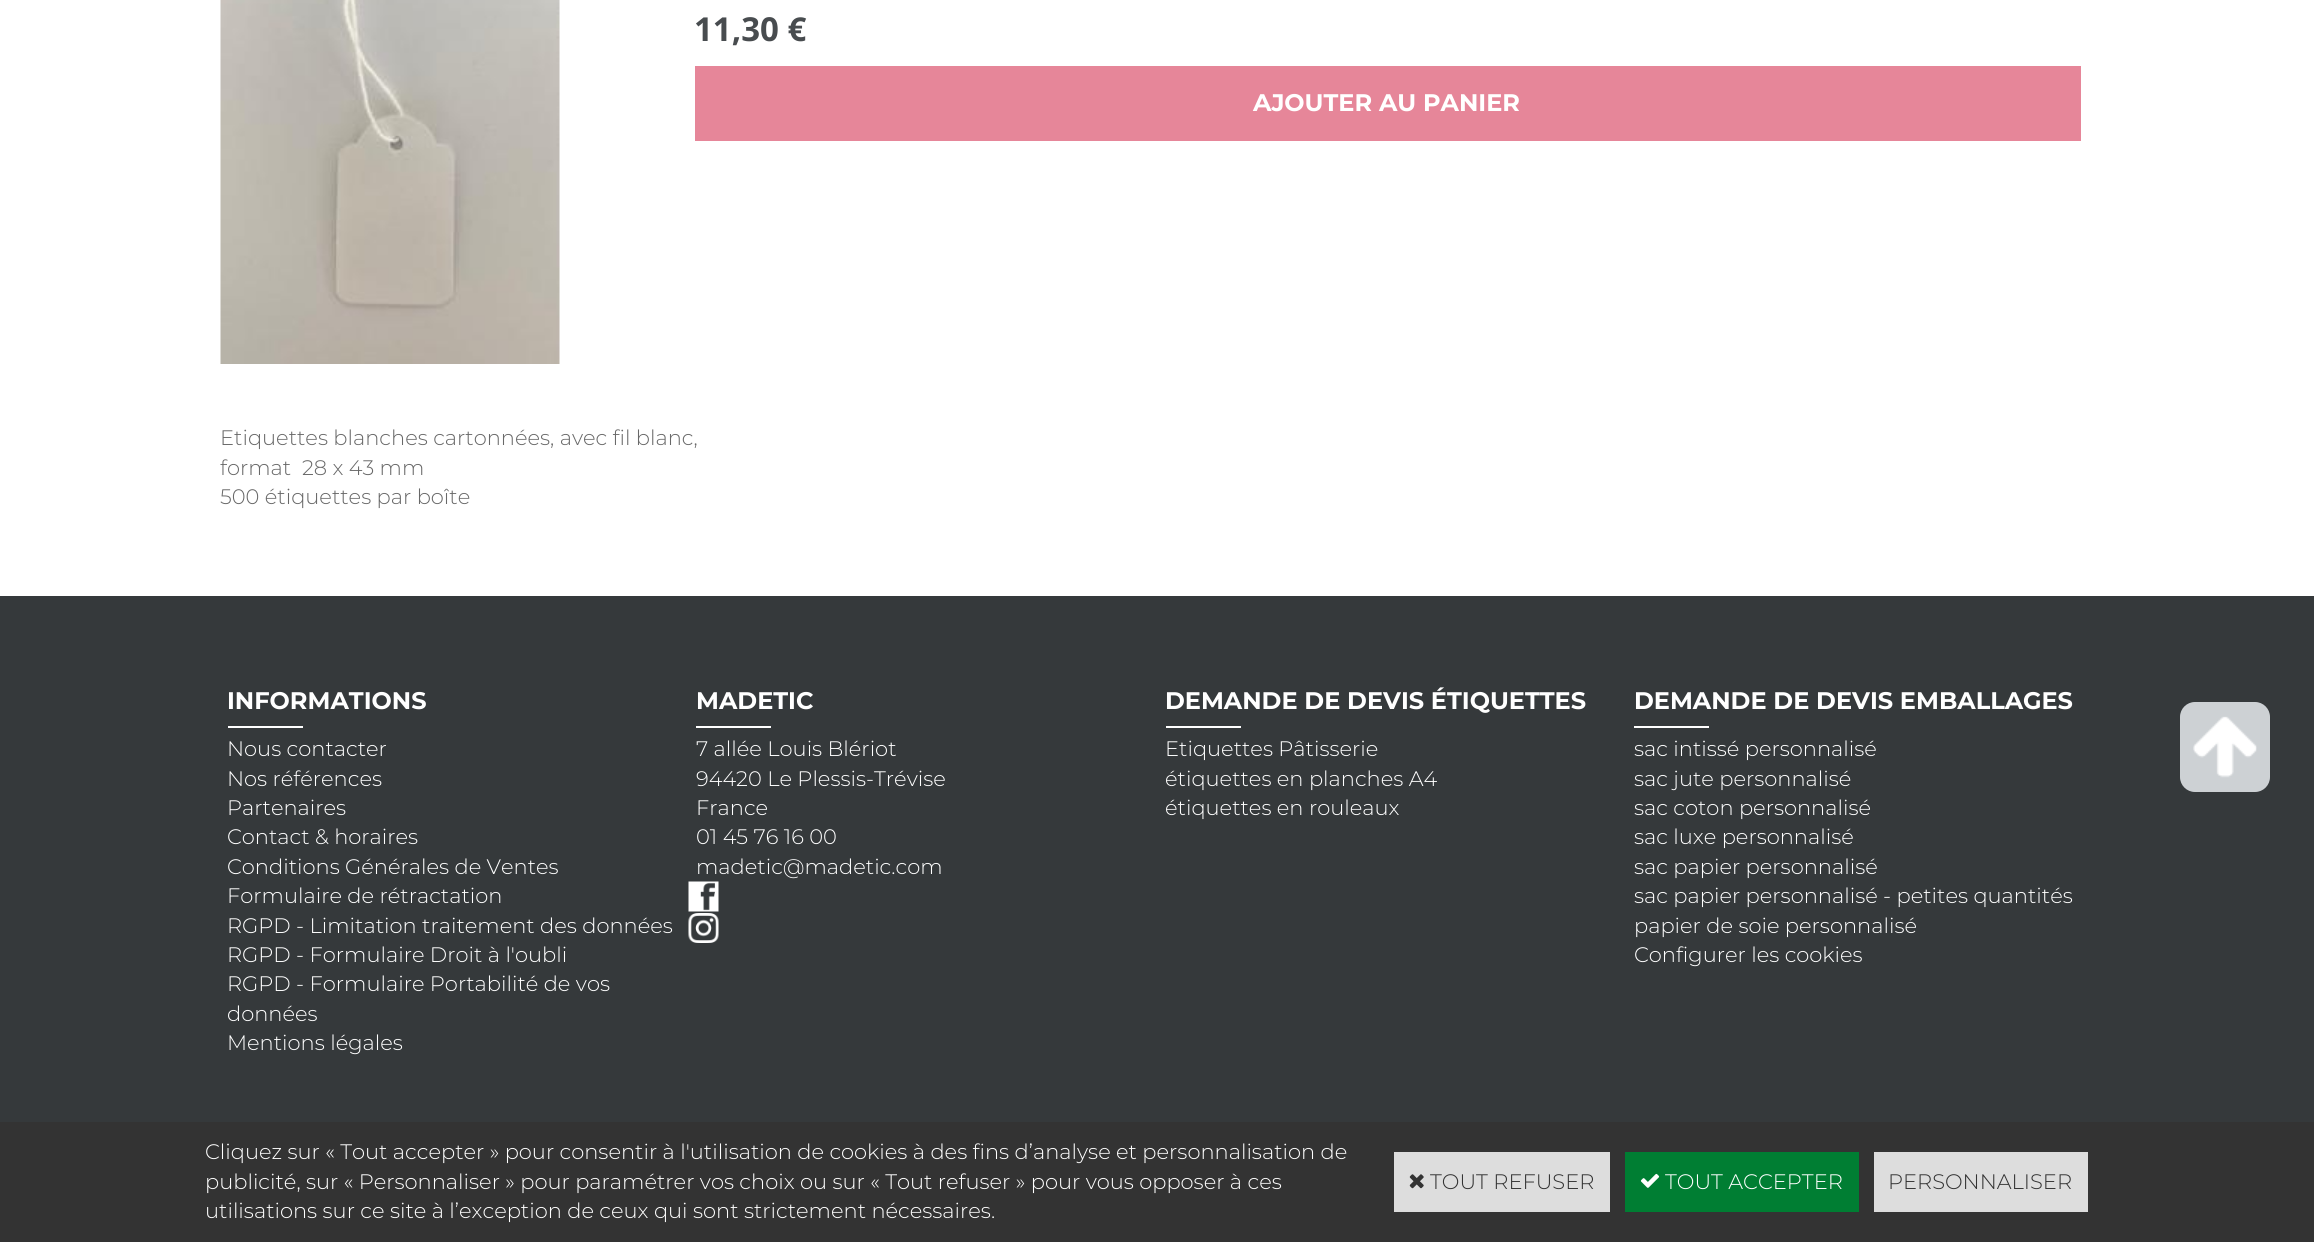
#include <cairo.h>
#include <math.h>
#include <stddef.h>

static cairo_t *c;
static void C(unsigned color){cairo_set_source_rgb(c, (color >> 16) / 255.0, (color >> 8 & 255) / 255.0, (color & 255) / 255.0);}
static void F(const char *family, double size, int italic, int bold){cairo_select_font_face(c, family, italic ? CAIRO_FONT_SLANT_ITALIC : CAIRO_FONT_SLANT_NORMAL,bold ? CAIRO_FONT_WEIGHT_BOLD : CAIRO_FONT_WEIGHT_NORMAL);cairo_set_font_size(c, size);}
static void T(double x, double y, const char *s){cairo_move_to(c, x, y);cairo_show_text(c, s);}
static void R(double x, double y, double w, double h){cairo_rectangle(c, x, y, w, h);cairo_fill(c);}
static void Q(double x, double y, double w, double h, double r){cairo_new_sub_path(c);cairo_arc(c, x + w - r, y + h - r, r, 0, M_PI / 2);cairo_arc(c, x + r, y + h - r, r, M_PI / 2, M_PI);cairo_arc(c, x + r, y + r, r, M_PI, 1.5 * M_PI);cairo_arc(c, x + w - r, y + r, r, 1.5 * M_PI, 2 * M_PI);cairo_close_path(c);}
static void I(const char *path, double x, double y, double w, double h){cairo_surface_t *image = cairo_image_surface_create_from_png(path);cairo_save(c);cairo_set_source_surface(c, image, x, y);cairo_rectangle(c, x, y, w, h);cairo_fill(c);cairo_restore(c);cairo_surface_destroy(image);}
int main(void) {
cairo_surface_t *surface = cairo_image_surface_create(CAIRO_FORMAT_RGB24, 2314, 1242);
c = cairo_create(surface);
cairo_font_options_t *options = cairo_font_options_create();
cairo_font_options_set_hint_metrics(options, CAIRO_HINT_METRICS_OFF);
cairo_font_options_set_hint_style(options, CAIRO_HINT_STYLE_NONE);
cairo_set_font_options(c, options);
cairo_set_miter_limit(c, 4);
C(0xffffff);
cairo_paint(c);
I("1.png",220,0,340,364);
F("Open Sans",33,0,1);
C(0x484c4f);
T(694,41,"11,30 €");
C(0xe68699);
R(695,66,1386,75);
F("Montserrat",24,0,1);
C(0xffffff);
T(1253,111,"AJOUTER AU PANIER");
F("Montserrat Light",21,0,0);
C(0x686868);
T(220,445,"Etiquettes blanches cartonnées, avec fil blanc,");
T(220,475,"format  28 x 43 mm");
T(220,504,"500 étiquettes par boîte");
C(0x35393b);
R(0,596,2314,526);
F("Montserrat",24,0,1);
C(0xffffff);
T(227,709,"INFORMATIONS");
R(228,726,75,2);
F("Montserrat Light",21,0,0);
T(227,756,"Nous contacter");
T(227,786,"Nos références");
T(227,815,"Partenaires");
T(227,844,"Contact & horaires");
T(227,874,"Conditions Générales de Ventes");
T(227,903,"Formulaire de rétractation");
T(227,933,"RGPD - Limitation traitement des données");
T(227,962,"RGPD - Formulaire Droit à l'oubli");
T(227,991,"RGPD - Formulaire Portabilité de vos");
T(227,1021,"données");
T(227,1050,"Mentions légales");
F("Montserrat",24,0,1);
T(696,709,"MADETIC");
R(696,726,75,2);
F("Montserrat Light",21,0,0);
T(696,756,"7 allée Louis Blériot");
T(696,786,"94420 Le Plessis-Trévise");
T(696,815,"France");
T(696,844,"01 45 76 16 00");
T(696,874,"madetic@madetic.com");
I("2.png",688,881,31,31);
I("3.png",688,913,31,30);
F("Montserrat",24,0,1);
T(1165,709,"DEMANDE DE DEVIS ÉTIQUETTES");
R(1166,726,75,2);
F("Montserrat Light",21,0,0);
T(1165,756,"Etiquettes Pâtisserie");
T(1165,786,"étiquettes en planches A4");
T(1165,815,"étiquettes en rouleaux");
F("Montserrat",24,0,1);
T(1634,709,"DEMANDE DE DEVIS EMBALLAGES");
R(1634,726,75,2);
F("Montserrat Light",21,0,0);
T(1634,756,"sac intissé personnalisé");
T(1634,786,"sac jute personnalisé");
T(1634,815,"sac coton personnalisé");
T(1634,844,"sac luxe personnalisé");
T(1634,874,"sac papier personnalisé");
T(1634,903,"sac papier personnalisé - petites quantités");
T(1634,933,"papier de soie personnalisé");
T(1634,962,"Configurer les cookies");
C(0xcdd1d4);
Q(2180,702,90,90,15);
cairo_fill(c);
I("4.png",2193,716,64,62);
C(0x333333);
R(0,1122,2314,120);
C(0xffffff);
T(205,1159,"Cliquez sur « Tout accepter » pour consentir à l'utilisation de cookies à des fins d’analyse et personnalisation de");
T(205,1189,"publicité, sur « Personnaliser » pour paramétrer vos choix ou sur « Tout refuser » pour vous opposer à ces");
T(205,1218,"utilisations sur ce site à l’exception de ceux qui sont strictement nécessaires.");
C(0xdddddd);
R(1394,1152,216,60);
I("5.png",1409,1174,15,15);
C(0x333333);
T(1430,1189,"TOUT REFUSER");
C(0x007e33);
R(1625,1152,234,60);
I("6.png",1640,1173,20,15);
C(0xffffff);
T(1665,1189,"TOUT ACCEPTER");
C(0xdddddd);
R(1874,1152,214,60);
C(0x333333);
T(1888,1189,"PERSONNALISER");
cairo_surface_write_to_png(surface, "o.png");
cairo_font_options_destroy(options);
cairo_destroy(c);
cairo_surface_destroy(surface);
return 0;
}
